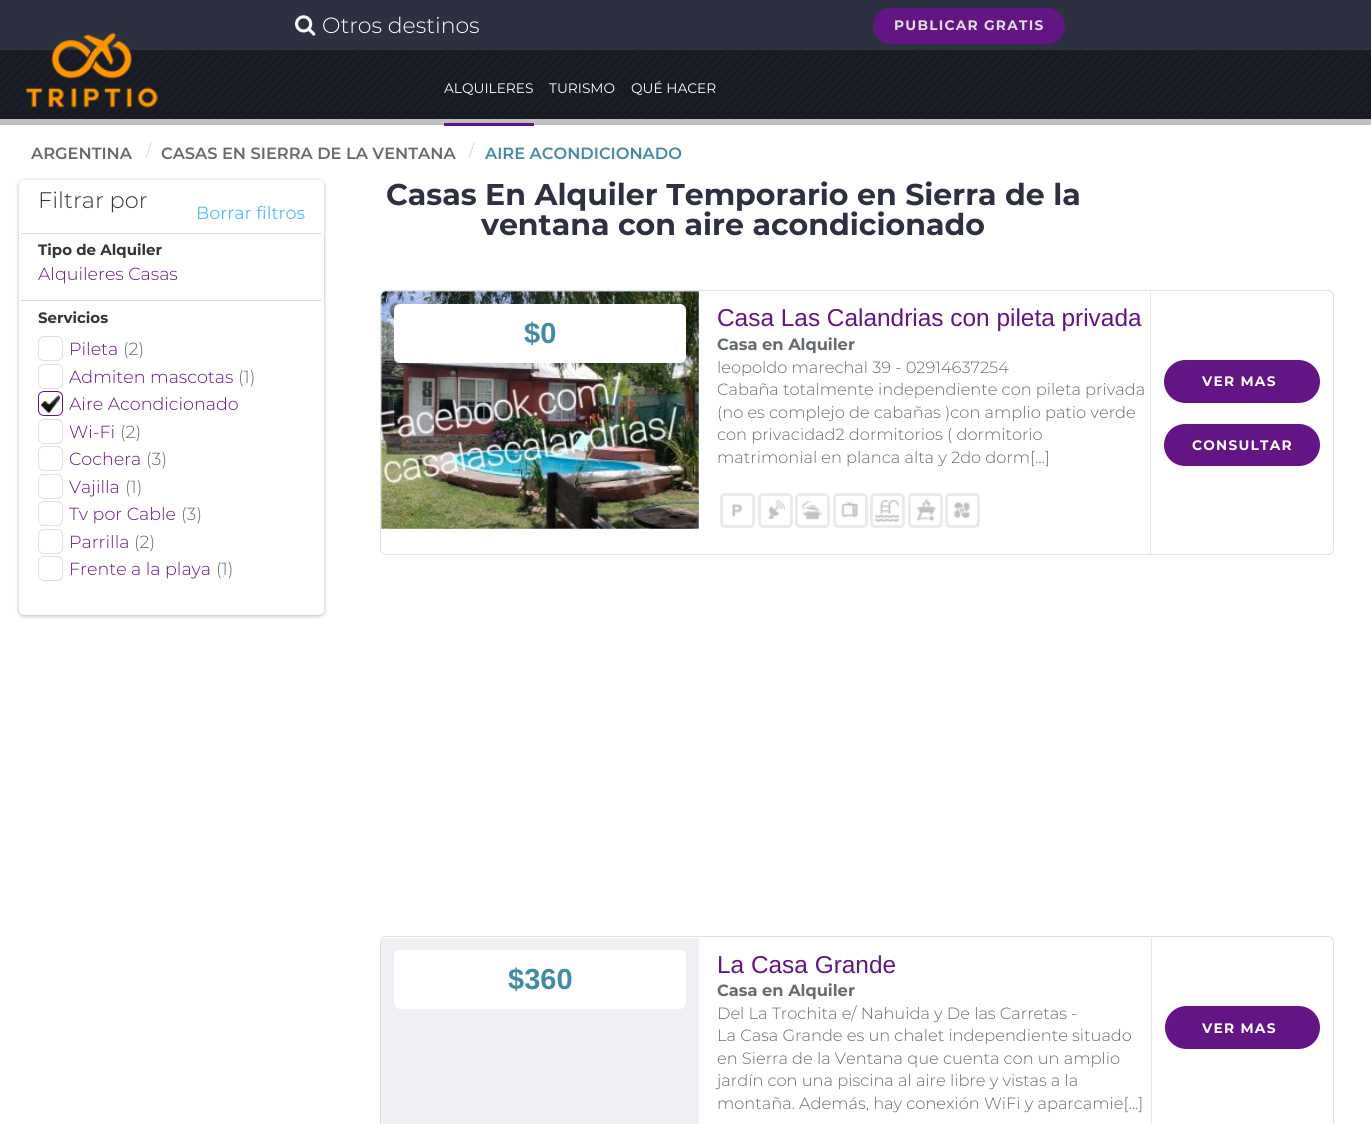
#include <cairo.h>
#include <math.h>
#include <stddef.h>

static cairo_t *c;
static void C(unsigned color){cairo_set_source_rgb(c, (color >> 16) / 255.0, (color >> 8 & 255) / 255.0, (color & 255) / 255.0);}
static void F(const char *family, double size, int italic, int bold){cairo_select_font_face(c, family, italic ? CAIRO_FONT_SLANT_ITALIC : CAIRO_FONT_SLANT_NORMAL,bold ? CAIRO_FONT_WEIGHT_BOLD : CAIRO_FONT_WEIGHT_NORMAL);cairo_set_font_size(c, size);}
static void T(double x, double y, const char *s){cairo_move_to(c, x, y);cairo_show_text(c, s);}
static void L(double x, double y, const char *s, double letter, double word){cairo_move_to(c, x, y);while (*s) {char ch[5] = {0};int n = 0;do ch[n++] = *s++; while ((*s & 0xC0) == 0x80);cairo_show_text(c, ch);cairo_rel_move_to(c, letter + word * (*ch == ' '), 0);}}
static void R(double x, double y, double w, double h){cairo_rectangle(c, x, y, w, h);cairo_fill(c);}
static void Q(double x, double y, double w, double h, double r){cairo_new_sub_path(c);cairo_arc(c, x + w - r, y + h - r, r, 0, M_PI / 2);cairo_arc(c, x + r, y + h - r, r, M_PI / 2, M_PI);cairo_arc(c, x + r, y + r, r, M_PI, 1.5 * M_PI);cairo_arc(c, x + w - r, y + r, r, 1.5 * M_PI, 2 * M_PI);cairo_close_path(c);}
static void S(double x, double y, double w, double h, double r, double blur, double alpha){cairo_push_group_with_content(c, CAIRO_CONTENT_ALPHA);cairo_set_operator(c, CAIRO_OPERATOR_SOURCE);for (int i = 15; i >= -15 && fmin(w, h) + blur * i / 3 > 0; i -= 2) {double e = blur * i / 6;cairo_set_source_rgba(c, 0, 0, 0, alpha * erfc((i - 1) / 8.5) / 2);Q(x - e, y - e, w + 2 * e, h + 2 * e, fmax(0, fmin(r + e + blur * .6, fmin(w, h) / 2 + e)));cairo_fill(c);}cairo_pattern_t *soft = cairo_pop_group(c);cairo_mask(c, soft);cairo_pattern_destroy(soft);}
static void I(const char *path, double x, double y, double w, double h){cairo_surface_t *image = cairo_image_surface_create_from_png(path);cairo_save(c);cairo_set_source_surface(c, image, x, y);cairo_rectangle(c, x, y, w, h);cairo_fill(c);cairo_restore(c);cairo_surface_destroy(image);}
int main(void) {
cairo_surface_t *surface = cairo_image_surface_create(CAIRO_FORMAT_RGB24, 1371, 1124);
c = cairo_create(surface);
cairo_font_options_t *options = cairo_font_options_create();
cairo_font_options_set_hint_metrics(options, CAIRO_HINT_METRICS_OFF);
cairo_font_options_set_hint_style(options, CAIRO_HINT_STYLE_NONE);
cairo_set_font_options(c, options);
cairo_set_miter_limit(c, 4);
C(0xffffff);
cairo_paint(c);
C(0x2c3040);
R(0,0,1371,50);
C(0x232633);
R(0,50,1371,69);
I("3.png",0,50,1371,69);
cairo_set_source_rgba(c,0,0,0,0.25);
R(0,50,1371,75);
I("1.png",26,32,132,76);
I("2.png",295,15,21,21);
F("Montserrat Light",22,0,0);
C(0xffffff);
T(322,33,"Otros destinos");
C(0x631485);
Q(873,8,192,36,18);
cairo_fill(c);
F("Montserrat",13.75,0,1);
C(0xdfe0e3);
L(894,30,"PUBLICAR GRATIS",1.25,0);
C(0x631485);
R(444,123,90,3);
F("Montserrat",13.75,0,0);
C(0xffffff);
T(444,93,"ALQUILERES");
T(549,93,"TURISMO");
T(631,93,"QUÉ HACER");
F("Montserrat SemiBold",16.25,0,0);
C(0x656b6f);
T(31,159,"ARGENTINA");
F("Montserrat Light",16.25,0,0);
C(0xc7c9ce);
T(146,156,"/");
F("Montserrat SemiBold",16.25,0,0);
C(0x656b6f);
T(161,159,"CASAS EN SIERRA DE LA VENTANA");
F("Montserrat Light",16.25,0,0);
C(0xc7c9ce);
T(469,156,"/");
F("Montserrat SemiBold",16.25,0,0);
C(0x428aa5);
T(485,159,"AIRE ACONDICIONADO");
C(0x000000);
S(19,181,305,435,5,2,.29);
C(0xffffff);
Q(19,180,305,435,5);
cairo_fill(c);
F("Montserrat Light",22.5,0,0);
C(0x333333);
T(38,208,"Filtrar por");
F("Montserrat",17.5,0,0);
C(0x56b9ff);
T(196,219,"Borrar filtros");
cairo_save(c);
cairo_set_fill_rule(c,CAIRO_FILL_RULE_EVEN_ODD);
cairo_new_path(c);
cairo_move_to(c,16,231);
cairo_line_to(c,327,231);
cairo_line_to(c,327,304);
cairo_line_to(c,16,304);
cairo_close_path(c);
cairo_move_to(c,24,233);
cairo_line_to(c,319,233);
cairo_curve_to(c,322,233,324,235,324,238);
cairo_line_to(c,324,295);
cairo_curve_to(c,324,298,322,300,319,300);
cairo_line_to(c,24,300);
cairo_curve_to(c,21,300,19,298,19,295);
cairo_line_to(c,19,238);
cairo_curve_to(c,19,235,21,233,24,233);
cairo_close_path(c);
cairo_clip(c);
C(0x000000);
S(19,234,305,67,5,.5,.05);
cairo_restore(c);
C(0xdddddd);
R(21,233,300,1);
F("Montserrat",15,0,1);
C(0x333333);
T(38,255,"Tipo de Alquiler");
F("Montserrat Light",17.5,0,0);
C(0x631485);
T(38,280,"Alquileres Casas");
C(0xdddddd);
R(21,300,300,1);
F("Montserrat",15,0,1);
C(0x333333);
T(38,323,"Servicios");
Q(38.5,336.5,24,24,5.5);
C(0xdfe0e3);
cairo_set_line_width(c,1);
cairo_stroke(c);
F("Montserrat Light",17.5,0,0);
C(0x631485);
T(69,355,"Pileta");
C(0x656b6f);
T(123,355,"(2)");
Q(38.5,364.5,24,24,5.5);
C(0xdfe0e3);
cairo_stroke(c);
C(0x631485);
T(69,383,"Admiten mascotas");
C(0x656b6f);
T(238,383,"(1)");
I("4.png",41,394,19,19);
Q(38.5,391.5,24,24,5.5);
C(0x631485);
cairo_stroke(c);
T(69,410,"Aire Acondicionado");
Q(38.5,419.5,24,24,5.5);
C(0xdfe0e3);
cairo_stroke(c);
C(0x631485);
T(69,438,"Wi-Fi");
C(0x656b6f);
T(120,438,"(2)");
Q(38.5,446.5,24,24,5.5);
C(0xdfe0e3);
cairo_stroke(c);
C(0x631485);
T(69,465,"Cochera");
C(0x656b6f);
T(146,465,"(3)");
Q(38.5,474.5,24,24,5.5);
C(0xdfe0e3);
cairo_stroke(c);
C(0x631485);
T(69,493,"Vajilla");
C(0x656b6f);
T(125,493,"(1)");
Q(38.5,501.5,24,24,5.5);
C(0xdfe0e3);
cairo_stroke(c);
C(0x631485);
T(69,520,"Tv por Cable");
C(0x656b6f);
T(181,520,"(3)");
Q(38.5,529.5,24,24,5.5);
C(0xdfe0e3);
cairo_stroke(c);
C(0x631485);
T(69,548,"Parrilla");
C(0x656b6f);
T(134,548,"(2)");
Q(38.5,556.5,24,24,5.5);
C(0xdfe0e3);
cairo_stroke(c);
C(0x631485);
T(69,575,"Frente a la playa");
C(0x656b6f);
T(216,575,"(1)");
F("Montserrat",30,0,1);
C(0x2c3040);
T(386,205,"Casas En Alquiler Temporario en Sierra de la");
T(481,235,"ventana con aire acondicionado");
Q(380.5,290.5,953,264,5.5);
C(0xdfe0e3);
cairo_stroke(c);
C(0xeff0f3);
cairo_new_path(c);
cairo_move_to(c,386,291);
cairo_line_to(c,699,291);
cairo_line_to(c,699,529);
cairo_line_to(c,381,529);
cairo_line_to(c,381,296);
cairo_curve_to(c,381,293,383,291,386,291);
cairo_close_path(c);
cairo_fill(c);
I("5.png",381,291,318,238);
C(0xffffff);
Q(394,304,292,59,6);
cairo_fill(c);
F("Liberation Sans",29,0,1);
C(0x428aa5);
T(524,343,"$0");
F("Liberation Sans",24.4,0,0);
C(0x631485);
T(717,326,"Casa Las Calandrias con pileta privada");
F("Montserrat",16.25,0,1);
C(0x656b6f);
T(717,350,"Casa en Alquiler");
F("Montserrat Light",16.25,0,0);
T(717,373,"leopoldo marechal 39 - 02914637254");
T(717,395,"Cabaña totalmente independiente con pileta privada");
T(717,418,"(no es complejo de cabañas )con amplio patio verde");
T(717,440,"con privacidad2 dormitorios ( dormitorio");
T(717,463,"matrimonial en planca alta y 2do dorm[…]");
I("6.png",732,503,11,14);
Q(721.5,494.5,32,32,3.5);
C(0xebebeb);
cairo_set_line_width(c,3);
cairo_stroke(c);
I("7.png",768,500,18,19);
Q(759.5,494.5,32,32,3.5);
cairo_stroke(c);
I("8.png",801,500,22,20);
Q(796.5,494.5,32,32,3.5);
cairo_stroke(c);
I("9.png",841,501,17,17);
Q(834.5,494.5,32,32,3.5);
cairo_stroke(c);
I("10.png",875,499,24,24);
Q(871.5,494.5,32,32,3.5);
cairo_stroke(c);
I("11.png",916,497,21,25);
Q(909.5,494.5,32,32,3.5);
cairo_stroke(c);
I("12.png",953,502,18,17);
Q(946.5,494.5,32,32,3.5);
cairo_stroke(c);
C(0xe8e8e8);
R(1150,291,1,263);
C(0x631485);
Q(1164,360,156,43,21.5);
cairo_fill(c);
F("Montserrat",13.75,0,1);
C(0xffffff);
L(1202,386,"VER MAS",1.25,0);
C(0x631485);
Q(1164,424,156,42,21);
cairo_fill(c);
C(0xffffff);
L(1192,450,"CONSULTAR",1.25,0);
Q(380.5,936.5,953,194,5.5);
C(0xdfe0e3);
cairo_set_line_width(c,1);
cairo_stroke(c);
C(0xeff0f3);
cairo_new_path(c);
cairo_move_to(c,386,938);
cairo_line_to(c,699,938);
cairo_line_to(c,699,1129);
cairo_line_to(c,381,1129);
cairo_line_to(c,381,943);
cairo_curve_to(c,381,940,383,938,386,938);
cairo_close_path(c);
cairo_fill(c);
C(0xffffff);
Q(394,950,292,59,6);
cairo_fill(c);
F("Liberation Sans",29,0,1);
C(0x428aa5);
T(508,989,"$360");
F("Liberation Sans",24.4,0,0);
C(0x631485);
T(717,973,"La Casa Grande");
F("Montserrat",16.25,0,1);
C(0x656b6f);
T(717,996,"Casa en Alquiler");
F("Montserrat Light",16.25,0,0);
T(717,1019,"Del La Trochita e/ Nahuida y De las Carretas -");
T(717,1041,"La Casa Grande es un chalet independiente situado");
T(717,1064,"en Sierra de la Ventana que cuenta con un amplio");
T(717,1086,"jardín con una piscina al aire libre y vistas a la");
T(717,1109,"montaña. Además, hay conexión WiFi y aparcamie[…]");
C(0xe8e8e8);
R(1151,938,1,186);
C(0x631485);
Q(1165,1006,155,43,21.5);
cairo_fill(c);
F("Montserrat",13.75,0,1);
C(0xffffff);
L(1202,1033,"VER MAS",1.25,0);
cairo_surface_write_to_png(surface, "o.png");
cairo_font_options_destroy(options);
cairo_destroy(c);
cairo_surface_destroy(surface);
return 0;
}
